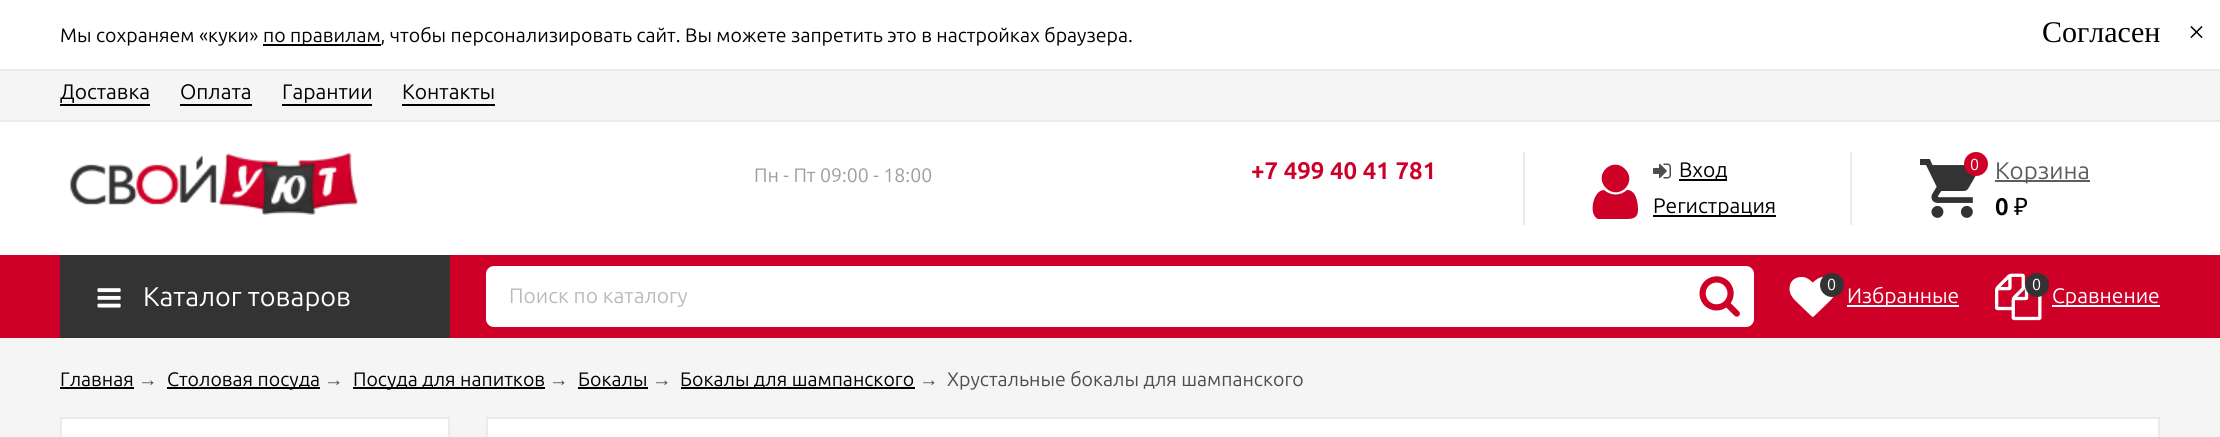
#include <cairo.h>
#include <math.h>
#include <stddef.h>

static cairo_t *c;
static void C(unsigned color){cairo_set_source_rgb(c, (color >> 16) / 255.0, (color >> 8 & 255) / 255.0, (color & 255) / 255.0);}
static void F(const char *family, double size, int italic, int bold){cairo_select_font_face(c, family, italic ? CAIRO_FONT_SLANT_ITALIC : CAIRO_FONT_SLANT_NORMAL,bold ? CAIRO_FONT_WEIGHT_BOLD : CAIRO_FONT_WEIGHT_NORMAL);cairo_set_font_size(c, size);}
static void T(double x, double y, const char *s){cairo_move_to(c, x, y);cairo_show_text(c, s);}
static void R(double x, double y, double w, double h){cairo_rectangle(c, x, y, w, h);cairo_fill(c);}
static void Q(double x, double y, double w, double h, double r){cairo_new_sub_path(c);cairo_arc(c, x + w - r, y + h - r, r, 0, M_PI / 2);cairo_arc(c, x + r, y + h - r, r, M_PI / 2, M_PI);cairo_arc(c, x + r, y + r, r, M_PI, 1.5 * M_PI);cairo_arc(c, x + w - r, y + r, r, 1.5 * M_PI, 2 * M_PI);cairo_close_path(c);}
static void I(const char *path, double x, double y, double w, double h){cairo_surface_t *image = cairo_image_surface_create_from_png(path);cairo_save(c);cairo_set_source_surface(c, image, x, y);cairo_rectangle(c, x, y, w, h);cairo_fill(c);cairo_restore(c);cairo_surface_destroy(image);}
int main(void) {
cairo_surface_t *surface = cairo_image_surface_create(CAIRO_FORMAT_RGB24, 2220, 437);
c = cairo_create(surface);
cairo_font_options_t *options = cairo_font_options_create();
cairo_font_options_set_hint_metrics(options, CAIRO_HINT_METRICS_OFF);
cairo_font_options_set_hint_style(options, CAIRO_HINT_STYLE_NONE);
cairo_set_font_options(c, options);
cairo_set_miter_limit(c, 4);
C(0xf5f5f6);
cairo_paint(c);
C(0xffffff);
R(0,0,2220,69);
C(0xebebeb);
R(0,69,2220,2);
F("Ubuntu",19.5,0,0);
C(0x000000);
T(60,42,"Мы сохраняем «куки»");
R(263,44,118,2);
T(263,42,"по правилам, чтобы персонализировать сайт. Вы можете запретить это в настройках браузера.");
F("Liberation Serif",30,0,0);
T(2042,42,"Согласен");
T(2188,42,"×");
C(0xebebeb);
R(0,120,2220,2);
F("Ubuntu",21,0,0);
C(0x000000);
T(60,99,"Доставка");
R(60,104,90,2);
T(180,99,"Оплата");
R(180,104,72,2);
T(282,99,"Гарантии");
R(282,104,90,2);
T(402,99,"Контакты");
R(402,104,93,2);
C(0xffffff);
R(0,122,2220,133);
I("1.png",70,153,288,62);
F("Ubuntu",19.5,0,0);
C(0x9e9e9e);
T(754,182,"Пн - Пт 09:00 - 18:00");
F("Ubuntu",24,0,1);
C(0xcf0028);
T(1251,179,"+7 499 40 41 781");
C(0xebebeb);
R(1850,152,2,73);
R(1523,152,2,73);
C(0xcf0028);
cairo_new_path(c);
cairo_move_to(c,1638,210);
cairo_curve_to(c,1638,218,1633,219,1626,219);
cairo_line_to(c,1598,219);
cairo_curve_to(c,1588,215,1593,190,1604,190);
cairo_curve_to(c,1611,196,1620,196,1627,190);
cairo_curve_to(c,1636,190,1638,202,1638,210);
cairo_close_path(c);
cairo_move_to(c,1625,169);
cairo_curve_to(c,1638,182,1619,201,1606,188);
cairo_curve_to(c,1593,175,1612,156,1625,169);
cairo_close_path(c);
cairo_fill(c);
I("2.png",1653,163,18,16);
C(0x000000);
R(1679,179,48,2);
F("Ubuntu",21,0,0);
T(1679,177,"Вход");
R(1653,215,123,2);
T(1653,213,"Регистрация");
I("3.png",1920,159,56,59);
C(0xcf0028);
cairo_arc(c,1976,164,12,0,2 * M_PI);
cairo_fill(c);
F("Ubuntu",16,0,0);
C(0xffffff);
T(1970,170,"0");
C(0x5d5d5d);
R(1995,180,95,2);
F("Ubuntu",24,0,0);
T(1995,179,"Корзина");
F("Ubuntu",24,0,1);
C(0x000000);
T(1995,215,"0");
F("Noto Sans",24,0,0);
T(2014,215,"₽");
C(0xcf0028);
R(0,255,2220,83);
C(0x333333);
R(60,255,390,83);
I("4.png",97,288,24,20);
F("Ubuntu",27,0,0);
C(0xffffff);
T(143,306,"Каталог товаров");
Q(486,266,1268,61,8);
cairo_fill(c);
F("Ubuntu",21,0,0);
C(0xbbbbbb);
T(509,303,"Поиск по каталогу");
I("5.png",1699,276,41,41);
I("6.png",1789,277,45,40);
C(0x333333);
cairo_arc(c,1832,285,12,0,2 * M_PI);
cairo_fill(c);
F("Ubuntu",16,0,0);
C(0xffffff);
T(1827,290,"0");
R(1847,305,112,2);
F("Ubuntu",21,0,0);
T(1847,303,"Избранные");
I("7.png",1995,273,47,48);
C(0x333333);
cairo_arc(c,2037,285,12,0,2 * M_PI);
cairo_fill(c);
F("Ubuntu",16,0,0);
C(0xffffff);
T(2032,290,"0");
R(2052,305,108,2);
F("Ubuntu",21,0,0);
T(2052,303,"Сравнение");
F("Ubuntu",19.5,0,0);
C(0x000000);
T(60,386,"Главная");
R(60,387,74,2);
F("Liberation Sans",19.5,0,0);
C(0x4d4d4d);
T(138,386,"→");
C(0x000000);
R(167,387,153,2);
F("Ubuntu",19.5,0,0);
T(167,386,"Столовая посуда");
F("Liberation Sans",19.5,0,0);
C(0x4d4d4d);
T(324,386,"→");
C(0x000000);
R(353,387,192,2);
F("Ubuntu",19.5,0,0);
T(353,386,"Посуда для напитков");
F("Liberation Sans",19.5,0,0);
C(0x4d4d4d);
T(549,386,"→");
F("Ubuntu",19.5,0,0);
C(0x000000);
T(578,386,"Бокалы");
R(578,387,70,2);
F("Liberation Sans",19.5,0,0);
C(0x4d4d4d);
T(652,386,"→");
C(0x000000);
R(681,387,234,2);
F("Ubuntu",19.5,0,0);
T(680,386,"Бокалы для шампанского");
F("Liberation Sans",19.5,0,0);
C(0x4d4d4d);
T(919,386,"→");
F("Ubuntu",19.5,0,0);
T(947,386,"Хрустальные бокалы для шампанского");
C(0xffffff);
cairo_rectangle(c,61,418,388,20);
cairo_fill_preserve(c);
C(0xebebeb);
cairo_stroke(c);
C(0xffffff);
cairo_rectangle(c,487,418,1672,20);
cairo_fill_preserve(c);
C(0xebebeb);
cairo_stroke(c);
cairo_surface_write_to_png(surface, "o.png");
cairo_font_options_destroy(options);
cairo_destroy(c);
cairo_surface_destroy(surface);
return 0;
}
